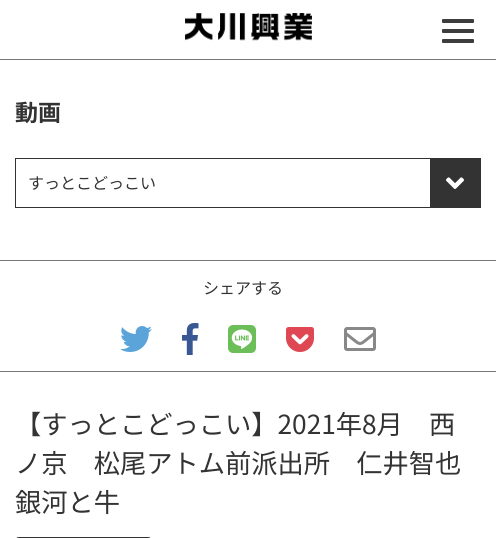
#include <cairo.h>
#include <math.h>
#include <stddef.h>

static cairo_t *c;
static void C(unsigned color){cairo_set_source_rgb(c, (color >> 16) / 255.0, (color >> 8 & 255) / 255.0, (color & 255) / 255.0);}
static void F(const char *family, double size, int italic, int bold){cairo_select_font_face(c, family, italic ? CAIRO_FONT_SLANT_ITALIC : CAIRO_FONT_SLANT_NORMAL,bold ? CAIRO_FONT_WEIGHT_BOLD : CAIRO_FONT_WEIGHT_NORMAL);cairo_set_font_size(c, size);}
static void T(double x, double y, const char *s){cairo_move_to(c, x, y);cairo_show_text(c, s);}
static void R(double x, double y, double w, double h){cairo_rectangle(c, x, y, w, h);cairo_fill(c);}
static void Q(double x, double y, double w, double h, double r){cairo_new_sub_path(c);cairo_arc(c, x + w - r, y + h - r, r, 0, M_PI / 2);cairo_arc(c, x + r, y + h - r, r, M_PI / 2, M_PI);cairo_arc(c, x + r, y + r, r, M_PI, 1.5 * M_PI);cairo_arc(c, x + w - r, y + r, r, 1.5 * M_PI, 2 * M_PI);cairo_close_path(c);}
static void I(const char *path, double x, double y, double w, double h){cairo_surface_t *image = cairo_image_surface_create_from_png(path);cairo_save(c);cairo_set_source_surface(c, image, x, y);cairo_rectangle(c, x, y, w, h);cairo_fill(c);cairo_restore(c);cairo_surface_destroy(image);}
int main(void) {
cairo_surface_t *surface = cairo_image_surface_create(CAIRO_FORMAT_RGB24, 496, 538);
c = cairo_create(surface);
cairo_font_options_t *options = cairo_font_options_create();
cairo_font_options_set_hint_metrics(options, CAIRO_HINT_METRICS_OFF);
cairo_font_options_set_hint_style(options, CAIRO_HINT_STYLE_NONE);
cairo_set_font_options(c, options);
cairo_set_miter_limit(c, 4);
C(0xffffff);
cairo_paint(c);
C(0x777777);
R(0,59,496,1);
I("1.png",185,13,127,28);
C(0x3d3d3d);
Q(442,19,32,4,1);
cairo_fill(c);
Q(442,29,32,4,1);
cairo_fill(c);
Q(442,39,32,4,1);
cairo_fill(c);
F("Noto Sans JP",23,0,1);
C(0x333333);
T(15,121,"動画");
cairo_rectangle(c,15.5,158.5,465,49);
cairo_set_line_width(c,1);
cairo_stroke(c);
F("Noto Sans JP",16,0,0);
T(28,189,"すっとこどっこい");
R(430,159,50,48);
I("2.png",446,177,18,12);
C(0x777777);
R(0,260,496,1);
R(0,371,496,1);
C(0x333333);
T(203,294,"シェアする");
I("3.png",120,326,32,26);
I("4.png",182,323,17,32);
I("5.png",228,325,28,28);
I("6.png",286,327,28,25);
I("7.png",344,327,32,24);
F("Noto Sans JP",26.25,0,0);
T(15,434,"【すっとこどっこい】2021年8月　西");
T(15,473,"ノ京　松尾アトム前派出所　仁井智也");
T(15,512,"銀河と牛");
Q(15.5,537.5,136,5,3.5);
cairo_stroke(c);
cairo_surface_write_to_png(surface, "o.png");
cairo_font_options_destroy(options);
cairo_destroy(c);
cairo_surface_destroy(surface);
return 0;
}
